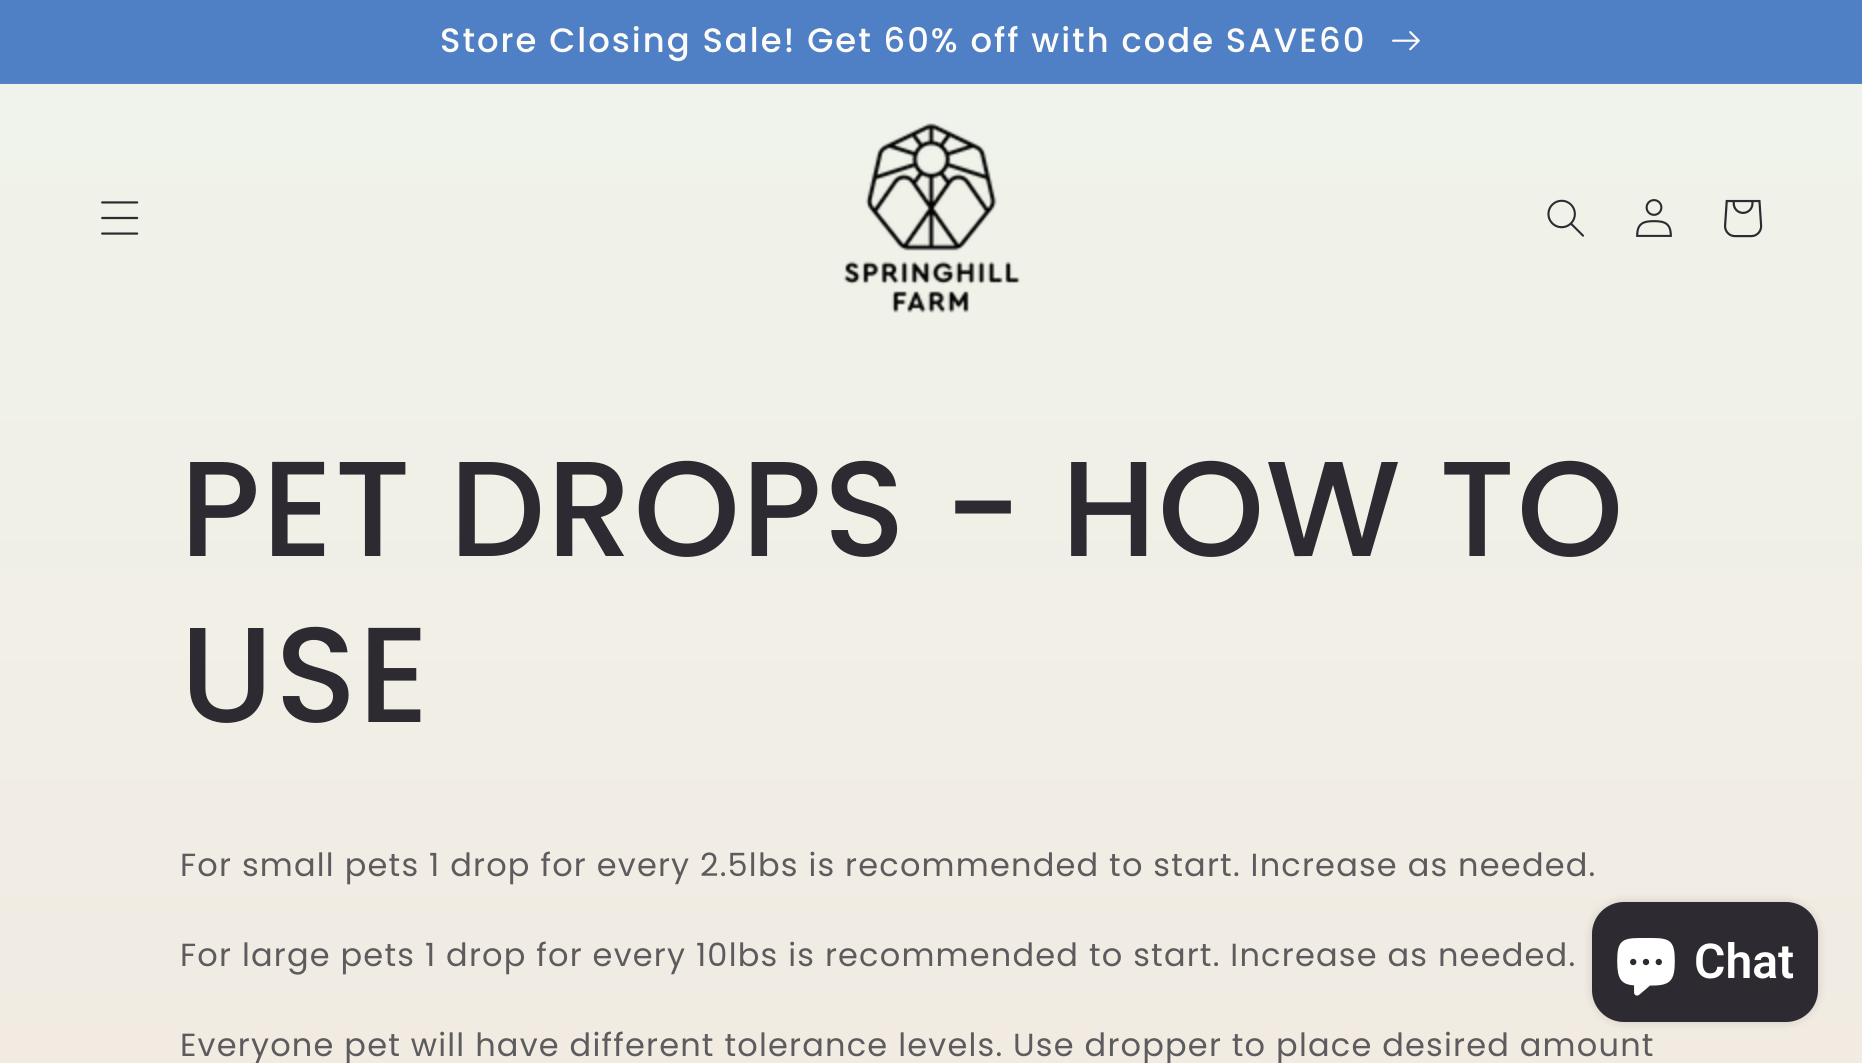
#include <cairo.h>
#include <math.h>
#include <stddef.h>

static cairo_t *c;
static void C(unsigned color){cairo_set_source_rgb(c, (color >> 16) / 255.0, (color >> 8 & 255) / 255.0, (color & 255) / 255.0);}
static void F(const char *family, double size, int italic, int bold){cairo_select_font_face(c, family, italic ? CAIRO_FONT_SLANT_ITALIC : CAIRO_FONT_SLANT_NORMAL,bold ? CAIRO_FONT_WEIGHT_BOLD : CAIRO_FONT_WEIGHT_NORMAL);cairo_set_font_size(c, size);}
static void T(double x, double y, const char *s){cairo_move_to(c, x, y);cairo_show_text(c, s);}
static void L(double x, double y, const char *s, double letter, double word){cairo_move_to(c, x, y);while (*s) {char ch[5] = {0};int n = 0;do ch[n++] = *s++; while ((*s & 0xC0) == 0x80);cairo_show_text(c, ch);cairo_rel_move_to(c, letter + word * (*ch == ' '), 0);}}
static void R(double x, double y, double w, double h){cairo_rectangle(c, x, y, w, h);cairo_fill(c);}
static void Q(double x, double y, double w, double h, double r){cairo_new_sub_path(c);cairo_arc(c, x + w - r, y + h - r, r, 0, M_PI / 2);cairo_arc(c, x + r, y + h - r, r, M_PI / 2, M_PI);cairo_arc(c, x + r, y + r, r, M_PI, 1.5 * M_PI);cairo_arc(c, x + w - r, y + r, r, 1.5 * M_PI, 2 * M_PI);cairo_close_path(c);}
static void S(double x, double y, double w, double h, double r, double blur, double alpha){cairo_push_group_with_content(c, CAIRO_CONTENT_ALPHA);cairo_set_operator(c, CAIRO_OPERATOR_SOURCE);for (int i = 15; i >= -15 && fmin(w, h) + blur * i / 3 > 0; i -= 2) {double e = blur * i / 6;cairo_set_source_rgba(c, 0, 0, 0, alpha * erfc((i - 1) / 8.5) / 2);Q(x - e, y - e, w + 2 * e, h + 2 * e, fmax(0, fmin(r + e + blur * .6, fmin(w, h) / 2 + e)));cairo_fill(c);}cairo_pattern_t *soft = cairo_pop_group(c);cairo_mask(c, soft);cairo_pattern_destroy(soft);}
static void I(const char *path, double x, double y, double w, double h){cairo_surface_t *image = cairo_image_surface_create_from_png(path);cairo_save(c);cairo_set_source_surface(c, image, x, y);cairo_rectangle(c, x, y, w, h);cairo_fill(c);cairo_restore(c);cairo_surface_destroy(image);}
int main(void) {
cairo_surface_t *surface = cairo_image_surface_create(CAIRO_FORMAT_RGB24, 1862, 1063);
c = cairo_create(surface);
cairo_font_options_t *options = cairo_font_options_create();
cairo_font_options_set_hint_metrics(options, CAIRO_HINT_METRICS_OFF);
cairo_font_options_set_hint_style(options, CAIRO_HINT_STYLE_NONE);
cairo_set_font_options(c, options);
cairo_set_miter_limit(c, 4);
cairo_pattern_t *gradient;
C(0xffffff);
cairo_paint(c);
gradient = cairo_pattern_create_linear(931,0,931,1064);
cairo_pattern_add_color_stop_rgba(gradient,0,0.941,0.957,0.925,1);
cairo_pattern_add_color_stop_rgba(gradient,1,0.945,0.922,0.886,1);
cairo_set_source(c,gradient);
cairo_pattern_destroy(gradient);
R(0,84,1862,979);
C(0x5382c6);
R(0,82,1862,2);
C(0x4f80c5);
R(0,0,1862,82);
F("Poppins Medium",33.8,0,0);
C(0xfdfbf7);
L(440,52,"Store Closing Sale! Get 60% off with code SAVE60",2,0);
I("1.png",1392,31,28,20);
I("2.png",101,201,38,34);
I("3.png",843,123,178,190);
I("4.png",1547,199,37,38);
I("5.png",1636,199,36,38);
I("6.png",1724,199,39,39);
F("Poppins Medium",135.25,0,0);
C(0x2d2a32);
L(180,556,"PET DROPS - HOW TO",1.6,0);
L(180,722,"USE",1.6,0);
F("Poppins",32,0,0);
C(0x5e5b5f);
L(180,876,"For small pets 1 drop for every 2.5lbs is recommended to start. Increase as needed.",1.2,0);
L(180,966,"For large pets 1 drop for every 10lbs is recommended to start. Increase as needed.",1.2,0);
L(180,1056,"Everyone pet will have different tolerance levels. Use dropper to place desired amount",1.2,0);
C(0x000000);
S(1592,902,226,120,32,5,.15);
C(0x2d2a32);
Q(1592,902,226,120,32);
cairo_fill(c);
I("7.png",1617,938,58,58);
F("Roboto SemiBold",48,0,0);
C(0xffffff);
T(1694,978,"Chat");
cairo_surface_write_to_png(surface, "o.png");
cairo_font_options_destroy(options);
cairo_destroy(c);
cairo_surface_destroy(surface);
return 0;
}
